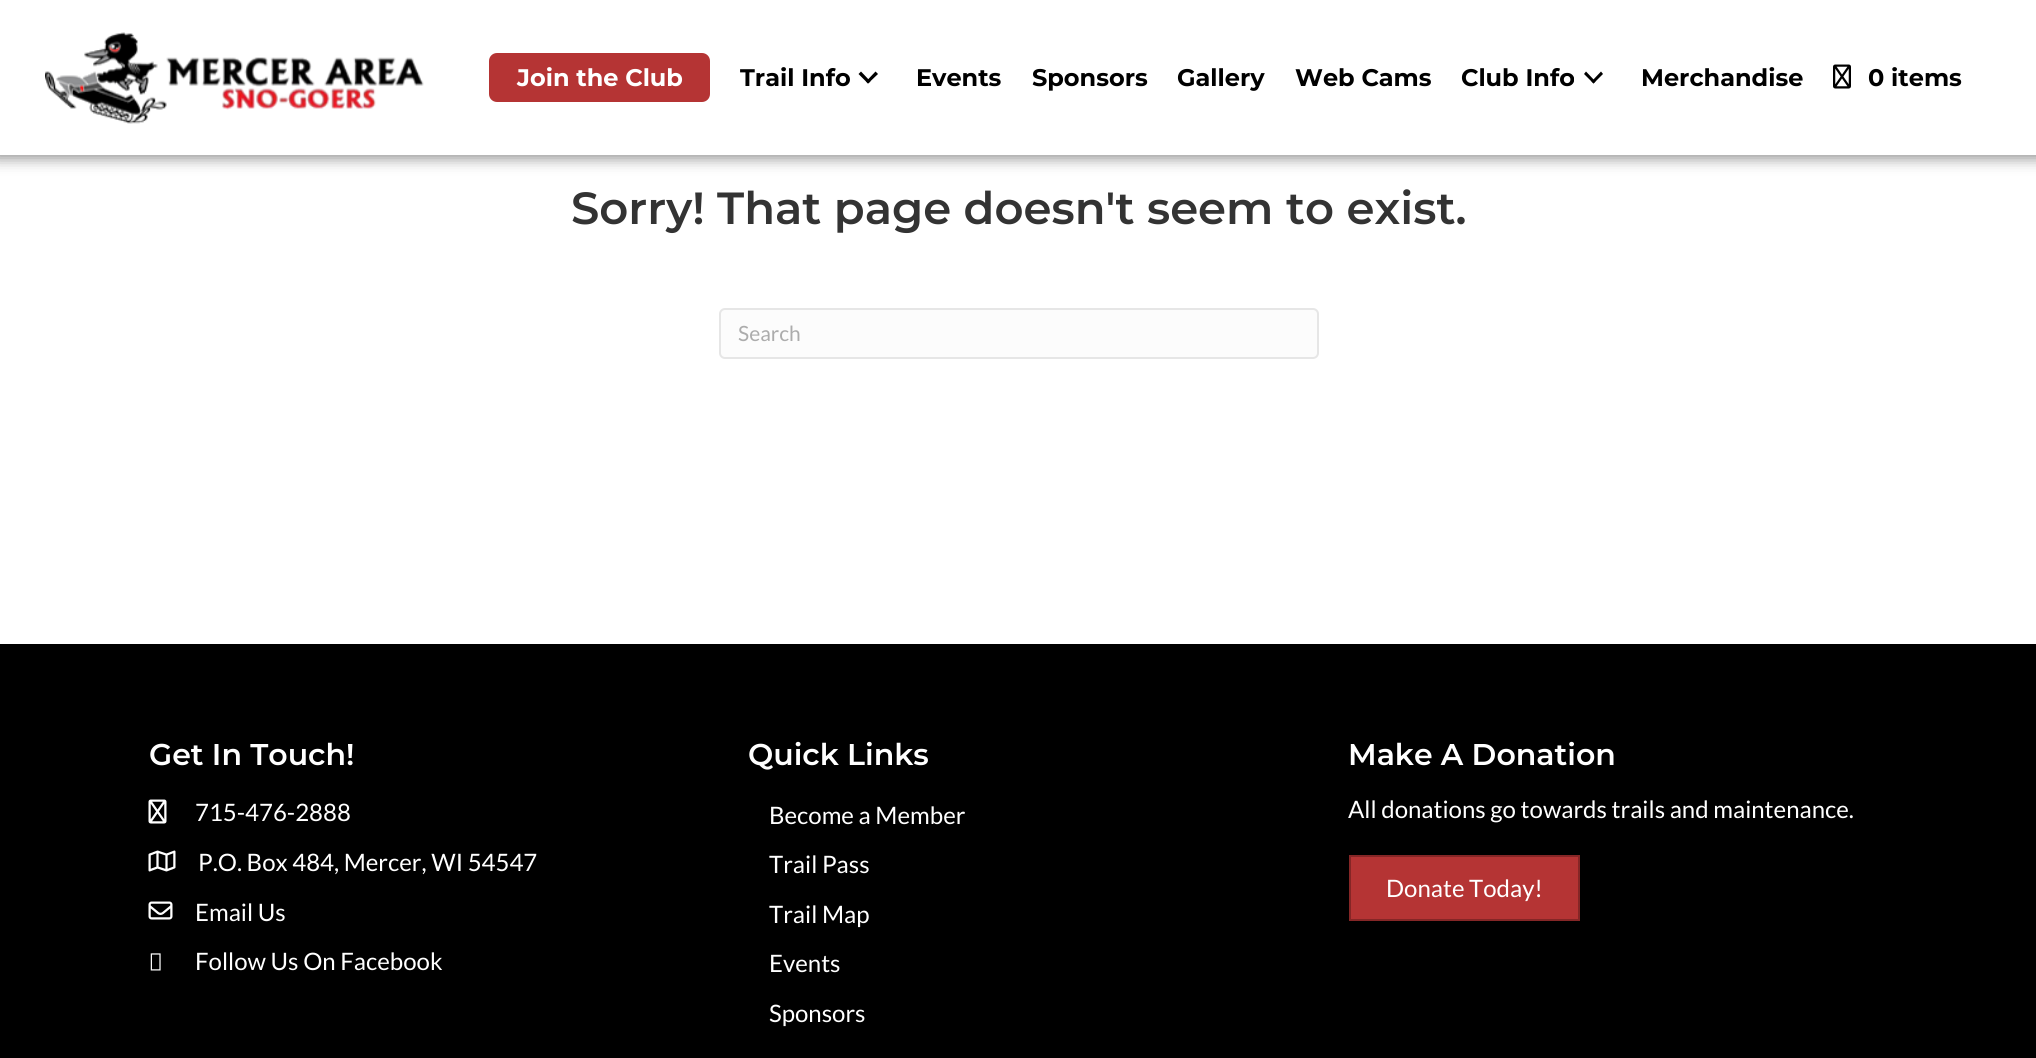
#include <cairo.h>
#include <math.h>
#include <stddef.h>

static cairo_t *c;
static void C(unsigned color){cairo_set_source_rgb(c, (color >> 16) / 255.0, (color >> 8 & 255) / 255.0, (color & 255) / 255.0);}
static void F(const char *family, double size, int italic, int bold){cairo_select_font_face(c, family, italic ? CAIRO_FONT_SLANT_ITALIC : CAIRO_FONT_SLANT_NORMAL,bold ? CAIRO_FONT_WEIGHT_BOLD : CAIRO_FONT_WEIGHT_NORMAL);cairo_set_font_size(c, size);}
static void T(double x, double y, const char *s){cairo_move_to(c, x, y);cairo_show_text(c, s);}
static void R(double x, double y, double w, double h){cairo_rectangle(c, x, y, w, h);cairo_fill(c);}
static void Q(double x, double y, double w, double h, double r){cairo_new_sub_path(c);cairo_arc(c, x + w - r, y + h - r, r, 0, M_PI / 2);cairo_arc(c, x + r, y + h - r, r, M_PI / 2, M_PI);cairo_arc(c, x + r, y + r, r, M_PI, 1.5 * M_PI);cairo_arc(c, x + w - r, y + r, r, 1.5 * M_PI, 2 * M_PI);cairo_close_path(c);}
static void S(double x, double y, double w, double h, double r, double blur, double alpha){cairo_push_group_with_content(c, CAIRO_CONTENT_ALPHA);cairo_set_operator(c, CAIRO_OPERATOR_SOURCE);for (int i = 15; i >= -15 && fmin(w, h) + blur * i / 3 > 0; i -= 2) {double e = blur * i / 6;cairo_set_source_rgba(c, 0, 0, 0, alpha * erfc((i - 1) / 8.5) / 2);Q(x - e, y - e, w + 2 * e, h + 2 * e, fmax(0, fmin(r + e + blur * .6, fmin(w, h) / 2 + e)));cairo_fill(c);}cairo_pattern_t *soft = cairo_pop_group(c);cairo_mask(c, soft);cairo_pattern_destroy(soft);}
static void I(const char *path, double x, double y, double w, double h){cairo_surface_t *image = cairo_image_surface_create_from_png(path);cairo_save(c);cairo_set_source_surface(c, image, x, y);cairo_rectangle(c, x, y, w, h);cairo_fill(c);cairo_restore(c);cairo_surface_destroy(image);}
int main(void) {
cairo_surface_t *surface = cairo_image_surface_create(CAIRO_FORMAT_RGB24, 2036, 1058);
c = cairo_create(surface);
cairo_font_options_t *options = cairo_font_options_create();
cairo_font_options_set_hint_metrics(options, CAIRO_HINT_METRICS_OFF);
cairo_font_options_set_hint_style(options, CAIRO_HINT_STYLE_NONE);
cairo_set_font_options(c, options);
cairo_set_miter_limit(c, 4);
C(0xffffff);
cairo_paint(c);
cairo_save(c);
cairo_set_fill_rule(c,CAIRO_FILL_RULE_EVEN_ODD);
cairo_new_path(c);
cairo_move_to(c,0,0);
cairo_line_to(c,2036,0);
cairo_line_to(c,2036,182);
cairo_line_to(c,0,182);
cairo_close_path(c);
cairo_move_to(c,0,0);
cairo_line_to(c,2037,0);
cairo_line_to(c,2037,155);
cairo_line_to(c,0,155);
cairo_close_path(c);
cairo_clip(c);
C(0x8c8c8c);
S(-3,-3,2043,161,0,7.5,1);
cairo_restore(c);
cairo_set_source_rgba(c,1,1,1,0.85);
R(0,154,2036,1);
I("1.png",45,32,379,92);
C(0xb53434);
Q(489,53,221,49,8);
cairo_fill(c);
F("Montserrat",24,0,1);
C(0xffffff);
T(517,86,"Join the Club");
C(0x000000);
T(740,86,"Trail Info");
cairo_new_path(c);
cairo_move_to(c,875.5,71.5);
cairo_line_to(c,878,74);
cairo_line_to(c,868,83.5);
cairo_line_to(c,866,81.5);
cairo_close_path(c);
cairo_fill(c);
cairo_new_path(c);
cairo_move_to(c,861,71.5);
cairo_line_to(c,870.5,81.5);
cairo_line_to(c,868,83.5);
cairo_line_to(c,858.5,74);
cairo_close_path(c);
cairo_fill(c);
T(916,86,"Events");
T(1032,86,"Sponsors");
T(1177,86,"Gallery");
T(1295,86,"Web Cams");
T(1461,86,"Club Info");
cairo_new_path(c);
cairo_move_to(c,1601,71.5);
cairo_line_to(c,1603,74);
cairo_line_to(c,1593.5,83.5);
cairo_line_to(c,1591.5,81.5);
cairo_close_path(c);
cairo_fill(c);
cairo_new_path(c);
cairo_move_to(c,1586,71.5);
cairo_line_to(c,1595.5,81.5);
cairo_line_to(c,1593.5,83.5);
cairo_line_to(c,1584,74);
cairo_close_path(c);
cairo_fill(c);
T(1641,86,"Merchandise");
I("2.png",1833,64,18,25);
T(1868,86,"0 items");
F("Montserrat SemiBold",45,0,0);
C(0x333333);
T(571,224,"Sorry! That page doesn't seem to exist.");
C(0xfcfcfc);
Q(720,309,598,49,5);
cairo_fill_preserve(c);
C(0xe6e6e6);
cairo_stroke(c);
F("Lato",21,0,0);
C(0xacacac);
T(738,341,"Search");
C(0x000000);
R(0,644,2036,414);
F("Montserrat SemiBold",30,0,0);
C(0xffffff);
T(149,765,"Get In Touch!");
I("3.png",148,799,19,25);
F("Lato",24,0,0);
T(195,821,"715-476-2888");
I("4.png",148,850,28,22);
T(198,871,"P.O. Box 484, Mercer, WI 54547");
I("5.png",148,901,25,19);
T(195,921,"Email Us");
I("6.png",150,953,11,18);
T(195,970,"Follow Us On Facebook");
F("Montserrat SemiBold",30,0,0);
T(748,765,"Quick Links");
F("Lato",24,0,0);
T(769,824,"Become a Member");
T(769,873,"Trail Pass");
T(769,923,"Trail Map");
T(769,972,"Events");
T(769,1022,"Sponsors");
F("Montserrat SemiBold",30,0,0);
T(1348,765,"Make A Donation");
F("Lato",24,0,0);
T(1348,818,"All donations go towards trails and maintenance.");
C(0xb53434);
cairo_rectangle(c,1350,856,229,64);
cairo_fill_preserve(c);
C(0x852626);
cairo_stroke(c);
C(0xffffff);
T(1386,897,"Donate Today!");
cairo_surface_write_to_png(surface, "o.png");
cairo_font_options_destroy(options);
cairo_destroy(c);
cairo_surface_destroy(surface);
return 0;
}
